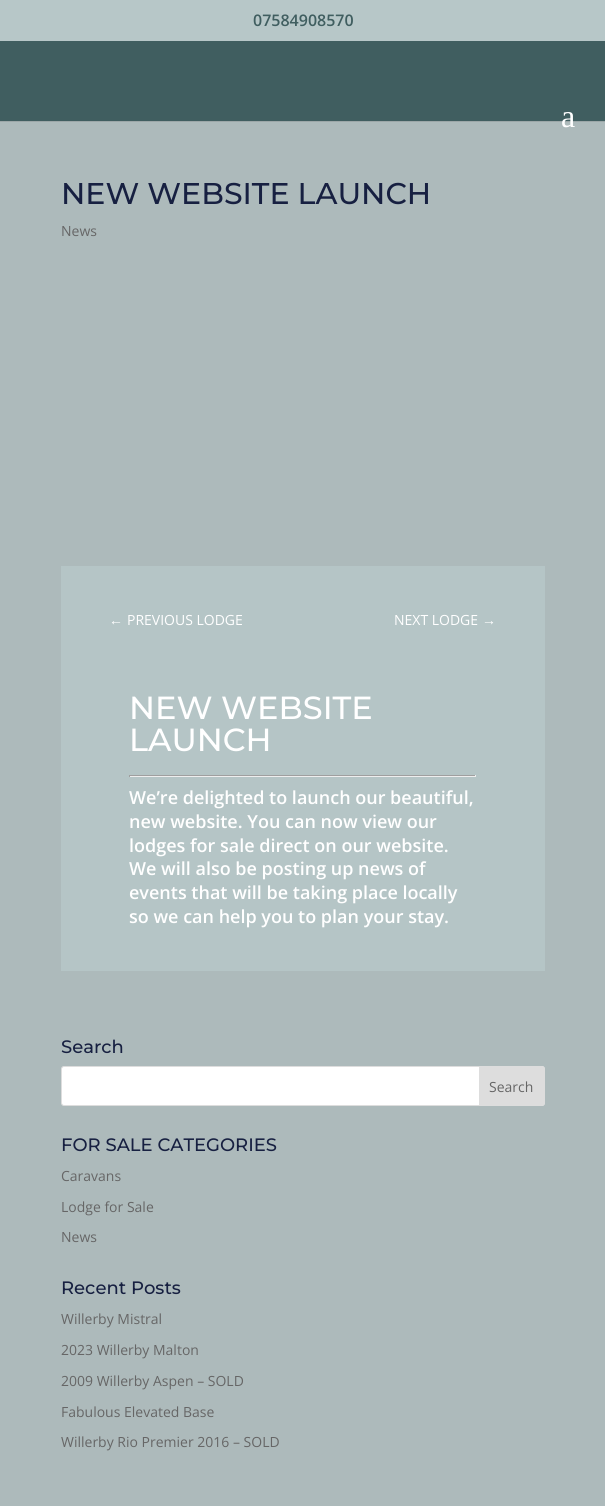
#include <cairo.h>
#include <math.h>
#include <stddef.h>

static cairo_t *c;
static void C(unsigned color){cairo_set_source_rgb(c, (color >> 16) / 255.0, (color >> 8 & 255) / 255.0, (color & 255) / 255.0);}
static void F(const char *family, double size, int italic, int bold){cairo_select_font_face(c, family, italic ? CAIRO_FONT_SLANT_ITALIC : CAIRO_FONT_SLANT_NORMAL,bold ? CAIRO_FONT_WEIGHT_BOLD : CAIRO_FONT_WEIGHT_NORMAL);cairo_set_font_size(c, size);}
static void T(double x, double y, const char *s){cairo_move_to(c, x, y);cairo_show_text(c, s);}
static void R(double x, double y, double w, double h){cairo_rectangle(c, x, y, w, h);cairo_fill(c);}
static void Q(double x, double y, double w, double h, double r){cairo_new_sub_path(c);cairo_arc(c, x + w - r, y + h - r, r, 0, M_PI / 2);cairo_arc(c, x + r, y + h - r, r, M_PI / 2, M_PI);cairo_arc(c, x + r, y + r, r, M_PI, 1.5 * M_PI);cairo_arc(c, x + w - r, y + r, r, 1.5 * M_PI, 2 * M_PI);cairo_close_path(c);}
int main(void) {
cairo_surface_t *surface = cairo_image_surface_create(CAIRO_FORMAT_RGB24, 605, 1506);
c = cairo_create(surface);
cairo_font_options_t *options = cairo_font_options_create();
cairo_font_options_set_hint_metrics(options, CAIRO_HINT_METRICS_OFF);
cairo_font_options_set_hint_style(options, CAIRO_HINT_STYLE_NONE);
cairo_set_font_options(c, options);
cairo_set_miter_limit(c, 4);
C(0xb7c7c8);
cairo_paint(c);
F("Open Sans SemiBold",16,0,0);
C(0x405e60);
T(253,26,"07584908570");
C(0x9ca7a8);
R(0,121,605,1);
C(0x405e60);
R(0,41,605,80);
C(0xadbabb);
R(0,122,605,1384);
F("Liberation Serif",32,0,0);
C(0xffffff);
T(561,127,"a");
F("Montserrat Thin",30,0,0);
C(0x172041);
T(61,204,"NEW WEBSITE LAUNCH");
F("Open Sans",14,0,0);
C(0x666666);
T(61,236,"News");
C(0xb5c5c6);
R(61,566,484,405);
F("Liberation Sans",14,0,0);
C(0xffffff);
T(109,625,"←");
F("Open Sans",14,0,0);
T(127,625,"PREVIOUS LODGE");
T(394,625,"NEXT LODGE");
F("Liberation Sans",14,0,0);
T(482,625,"→");
F("Montserrat Thin",32,0,0);
T(129,719,"NEW WEBSITE");
T(129,751,"LAUNCH");
C(0x9f9f9f);
R(129,775,347,1);
C(0xeeeeee);
R(475,775,1,2);
R(129,776,347,1);
C(0x9f9f9f);
R(129,775,1,2);
F("Open Sans SemiBold",18,0,0);
C(0xffffff);
T(129,804,"We’re delighted to launch our beautiful,");
T(129,828,"new website. You can now view our");
T(129,852,"lodges for sale direct on our website.");
T(129,875,"We will also be posting up news of");
T(129,899,"events that will be taking place locally");
T(129,923,"so we can help you to plan your stay.");
F("Montserrat Thin",18,0,0);
C(0x172041);
T(61,1053,"Search");
C(0xffffff);
Q(61.5,1066.5,483,39,2.5);
cairo_fill_preserve(c);
C(0xdddddd);
cairo_set_line_width(c,1);
cairo_stroke(c);
cairo_new_path(c);
cairo_move_to(c,479,1066);
cairo_line_to(c,542,1066);
cairo_curve_to(c,543.5,1066,545,1067.5,545,1069);
cairo_line_to(c,545,1103);
cairo_curve_to(c,545,1104.5,543.5,1106,542,1106);
cairo_line_to(c,479,1106);
cairo_close_path(c);
cairo_fill(c);
F("Open Sans",14,0,0);
C(0x666666);
T(489,1092,"Search");
F("Montserrat Thin",18,0,0);
C(0x172041);
T(61,1151,"FOR SALE CATEGORIES");
F("Open Sans",14,0,0);
C(0x666666);
T(61,1181,"Caravans");
T(61,1212,"Lodge for Sale");
T(61,1242,"News");
F("Montserrat Thin",18,0,0);
C(0x172041);
T(61,1294,"Recent Posts");
F("Open Sans",14,0,0);
C(0x666666);
T(61,1324,"Willerby Mistral");
T(61,1355,"2023 Willerby Malton");
T(61,1386,"2009 Willerby Aspen – SOLD");
T(61,1417,"Fabulous Elevated Base");
T(61,1447,"Willerby Rio Premier 2016 – SOLD");
cairo_surface_write_to_png(surface, "o.png");
cairo_font_options_destroy(options);
cairo_destroy(c);
cairo_surface_destroy(surface);
return 0;
}
